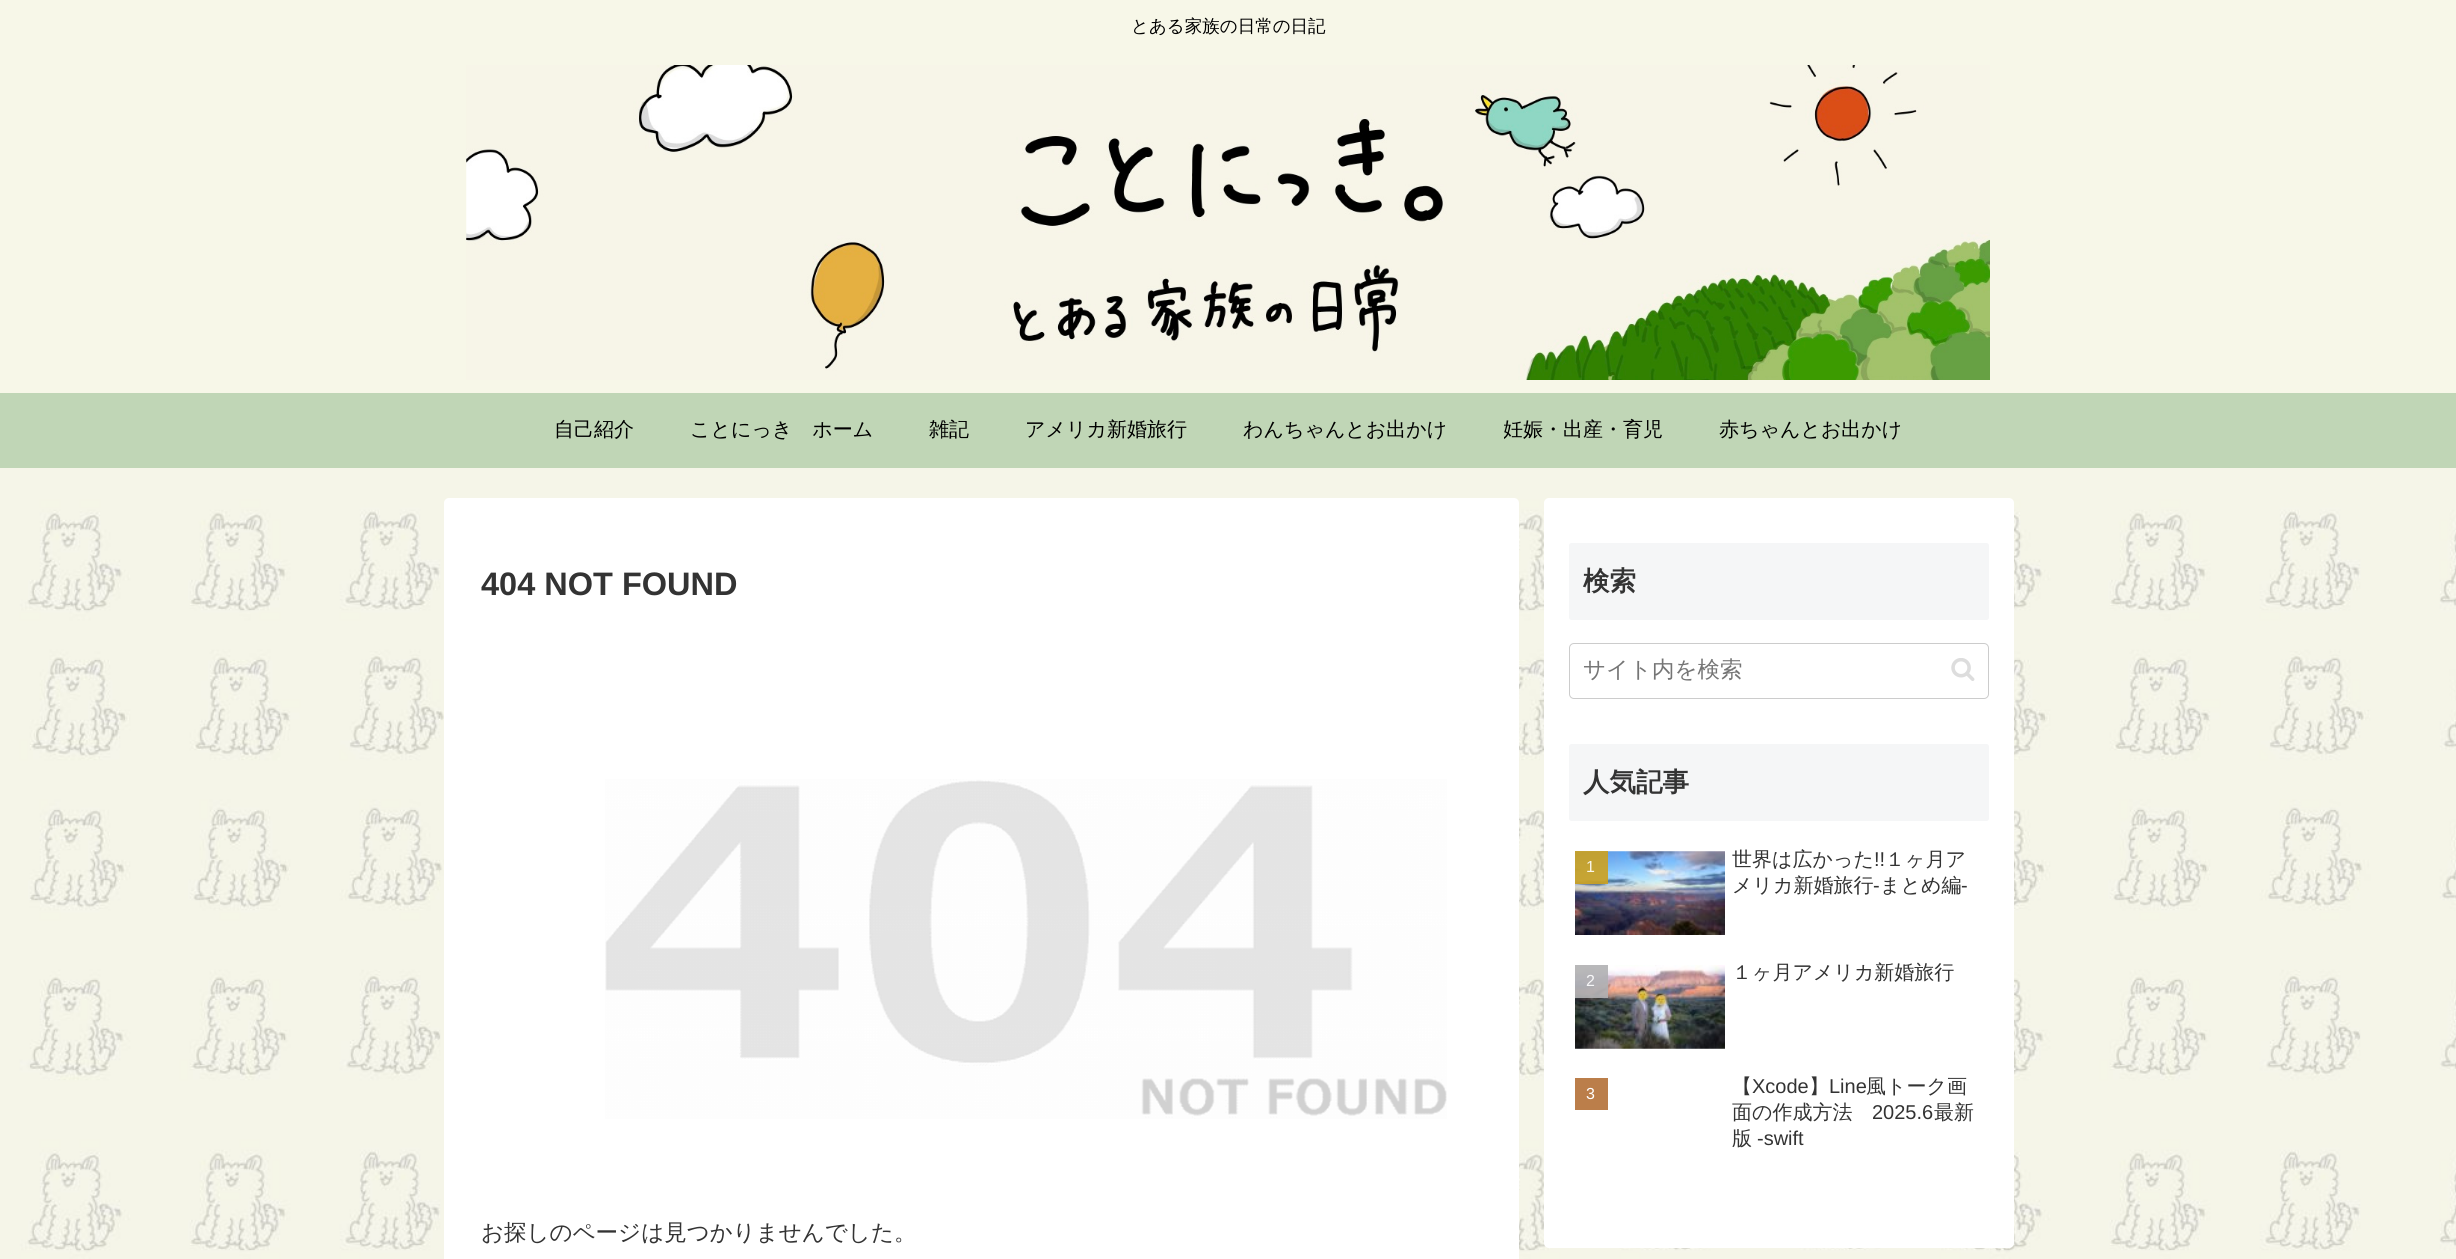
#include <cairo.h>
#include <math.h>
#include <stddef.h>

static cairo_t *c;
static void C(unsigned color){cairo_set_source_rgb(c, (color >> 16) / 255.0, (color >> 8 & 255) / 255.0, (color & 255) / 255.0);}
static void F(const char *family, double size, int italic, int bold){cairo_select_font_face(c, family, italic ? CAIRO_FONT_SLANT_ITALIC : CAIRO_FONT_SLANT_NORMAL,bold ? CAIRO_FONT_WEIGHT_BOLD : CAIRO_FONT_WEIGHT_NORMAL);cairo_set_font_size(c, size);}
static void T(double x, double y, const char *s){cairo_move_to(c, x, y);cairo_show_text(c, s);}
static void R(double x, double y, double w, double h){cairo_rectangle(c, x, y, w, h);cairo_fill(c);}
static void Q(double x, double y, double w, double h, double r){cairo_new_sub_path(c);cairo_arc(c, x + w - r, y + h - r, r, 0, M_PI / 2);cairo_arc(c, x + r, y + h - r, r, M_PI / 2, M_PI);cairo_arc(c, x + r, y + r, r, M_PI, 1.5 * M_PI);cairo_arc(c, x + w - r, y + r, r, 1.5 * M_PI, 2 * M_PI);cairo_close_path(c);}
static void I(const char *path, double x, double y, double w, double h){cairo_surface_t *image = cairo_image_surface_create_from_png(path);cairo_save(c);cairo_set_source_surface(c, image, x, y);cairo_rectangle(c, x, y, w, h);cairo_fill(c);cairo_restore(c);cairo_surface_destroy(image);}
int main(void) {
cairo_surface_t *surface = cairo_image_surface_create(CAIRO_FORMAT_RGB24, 2456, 1259);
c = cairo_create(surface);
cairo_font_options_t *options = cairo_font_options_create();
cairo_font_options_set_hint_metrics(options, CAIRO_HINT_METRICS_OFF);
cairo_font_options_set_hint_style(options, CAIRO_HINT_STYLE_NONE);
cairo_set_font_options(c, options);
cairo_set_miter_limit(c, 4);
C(0xffffff);
cairo_paint(c);
I("1.png",0,468,2456,791);
C(0xf7f7e8);
R(0,0,2456,393);
F("WenQuanYi Zen Hei Medium",17.5,0,0);
C(0x000000);
T(1131,32,"とある家族の日常の日記");
I("2.png",466,65,1524,315);
C(0xc0d6b6);
R(0,393,2456,75);
F("WenQuanYi Zen Hei Medium",20,0,0);
C(0x000000);
T(554,436,"自己紹介");
T(690,436,"ことにっき　ホーム");
T(929,436,"雑記");
T(1025,436,"アメリカ新婚旅行");
T(1243,436,"わんちゃんとお出かけ");
cairo_save(c);
cairo_rectangle(c,1504,411,160,37);
cairo_clip(c);
T(1503,436,"妊娠・出産・育児");
cairo_restore(c);
T(1719,436,"赤ちゃんとお出かけ");
C(0xffffff);
Q(444,498,1075,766,5);
cairo_fill(c);
F("Liberation Sans",32.5,0,1);
C(0x333333);
T(481,595,"404 NOT FOUND");
I("3.png",605,779,842,340);
F("WenQuanYi Zen Hei Medium",22.5,0,0);
T(481,1240,"お探しのページは見つかりませんでした。");
C(0xffffff);
Q(1544,498,470,750,5);
cairo_fill(c);
C(0xf5f6f7);
Q(1569,543,420,77,2.5);
cairo_fill(c);
F("WenQuanYi Zen Hei",26.5,0,1);
C(0x333333);
T(1583,590,"検索");
Q(1569.5,643.5,419,55,4.5);
C(0xcccccc);
cairo_set_line_width(c,1);
cairo_stroke(c);
F("WenQuanYi Zen Hei Medium",22.5,0,0);
C(0x757575);
T(1583,677,"サイト内を検索");
I("4.png",1951,658,24,23);
C(0xf5f6f7);
Q(1569,744,420,77,2.5);
cairo_fill(c);
F("WenQuanYi Zen Hei",26.5,0,1);
C(0x333333);
T(1583,791,"人気記事");
I("5.png",1575,851,150,84);
cairo_set_source_rgba(c,0.8,0.631,0.122,0.9);
R(1575,851,33,33);
F("Liberation Sans",16,0,0);
C(0xf9f6eb);
T(1586,872,"1");
F("WenQuanYi Zen Hei Medium",20,0,0);
C(0x333333);
T(1732,866,"世界は広かった");
F("Liberation Sans",20,0,0);
T(1874,866,"!!");
F("WenQuanYi Zen Hei Medium",20,0,0);
T(1885,866,"１ヶ月ア");
T(1732,892,"メリカ新婚旅行");
F("Liberation Sans",20,0,0);
T(1873,892,"-");
F("WenQuanYi Zen Hei Medium",20,0,0);
T(1880,892,"まとめ編");
F("Liberation Sans",20,0,0);
T(1961,892,"-");
I("6.png",1575,965,150,84);
cairo_set_source_rgba(c,0.694,0.694,0.702,0.9);
R(1575,965,33,33);
F("Liberation Sans",16,0,0);
C(0xf7f7f8);
T(1586,986,"2");
F("WenQuanYi Zen Hei Medium",20,0,0);
C(0x333333);
T(1732,979,"１ヶ月アメリカ新婚旅行");
C(0xbb7e4a);
R(1575,1078,33,32);
F("Liberation Sans",16,0,0);
C(0xffffff);
T(1586,1099,"3");
F("WenQuanYi Zen Hei Medium",20,0,0);
C(0x333333);
T(1732,1093,"【");
F("Liberation Sans",20,0,0);
T(1752,1093,"Xcode");
F("WenQuanYi Zen Hei Medium",20,0,0);
T(1809,1093,"】");
F("Liberation Sans",20,0,0);
T(1829,1093,"Line");
F("WenQuanYi Zen Hei Medium",20,0,0);
T(1866,1093,"風トーク画");
T(1732,1119,"面の作成方法");
F("Liberation Sans",20,0,0);
T(1872,1119,"2025.6");
F("WenQuanYi Zen Hei Medium",20,0,0);
T(1934,1119,"最新");
T(1732,1145,"版");
F("Liberation Sans",20,0,0);
T(1757,1145,"-swift");
cairo_surface_write_to_png(surface, "o.png");
cairo_font_options_destroy(options);
cairo_destroy(c);
cairo_surface_destroy(surface);
return 0;
}
